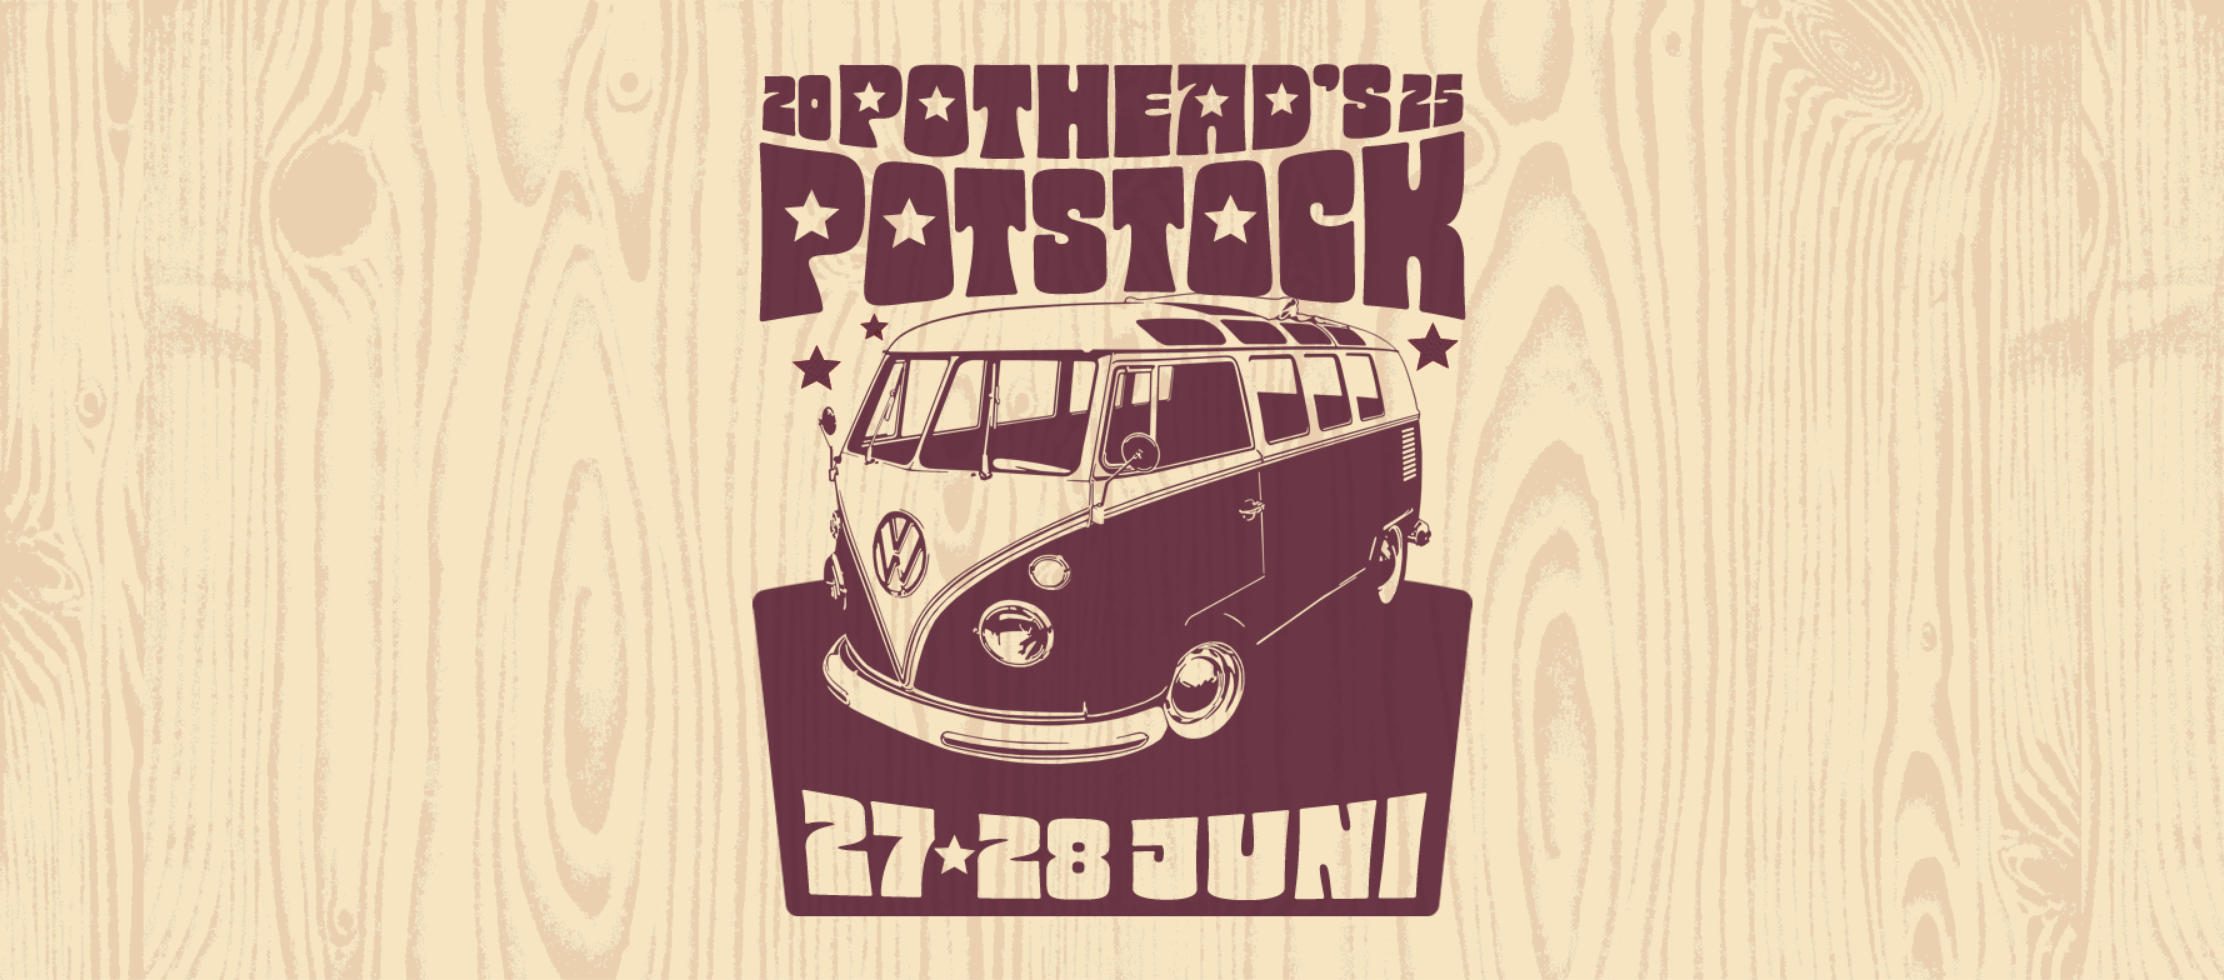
#include <cairo.h>
#include <math.h>
#include <stddef.h>

static cairo_t *c;
static void C(unsigned color){cairo_set_source_rgb(c, (color >> 16) / 255.0, (color >> 8 & 255) / 255.0, (color & 255) / 255.0);}
static void I(const char *path, double x, double y, double w, double h){cairo_surface_t *image = cairo_image_surface_create_from_png(path);cairo_save(c);cairo_set_source_surface(c, image, x, y);cairo_rectangle(c, x, y, w, h);cairo_fill(c);cairo_restore(c);cairo_surface_destroy(image);}
int main(void) {
cairo_surface_t *surface = cairo_image_surface_create(CAIRO_FORMAT_RGB24, 2224, 980);
c = cairo_create(surface);
cairo_font_options_t *options = cairo_font_options_create();
cairo_font_options_set_hint_metrics(options, CAIRO_HINT_METRICS_OFF);
cairo_font_options_set_hint_style(options, CAIRO_HINT_STYLE_NONE);
cairo_set_font_options(c, options);
cairo_set_miter_limit(c, 4);
C(0xffffff);
cairo_paint(c);
I("1.png",0,0,2224,980);
I("2.png",752,63,721,854);
I("3.png",792,313,667,78);
cairo_surface_write_to_png(surface, "o.png");
cairo_font_options_destroy(options);
cairo_destroy(c);
cairo_surface_destroy(surface);
return 0;
}
